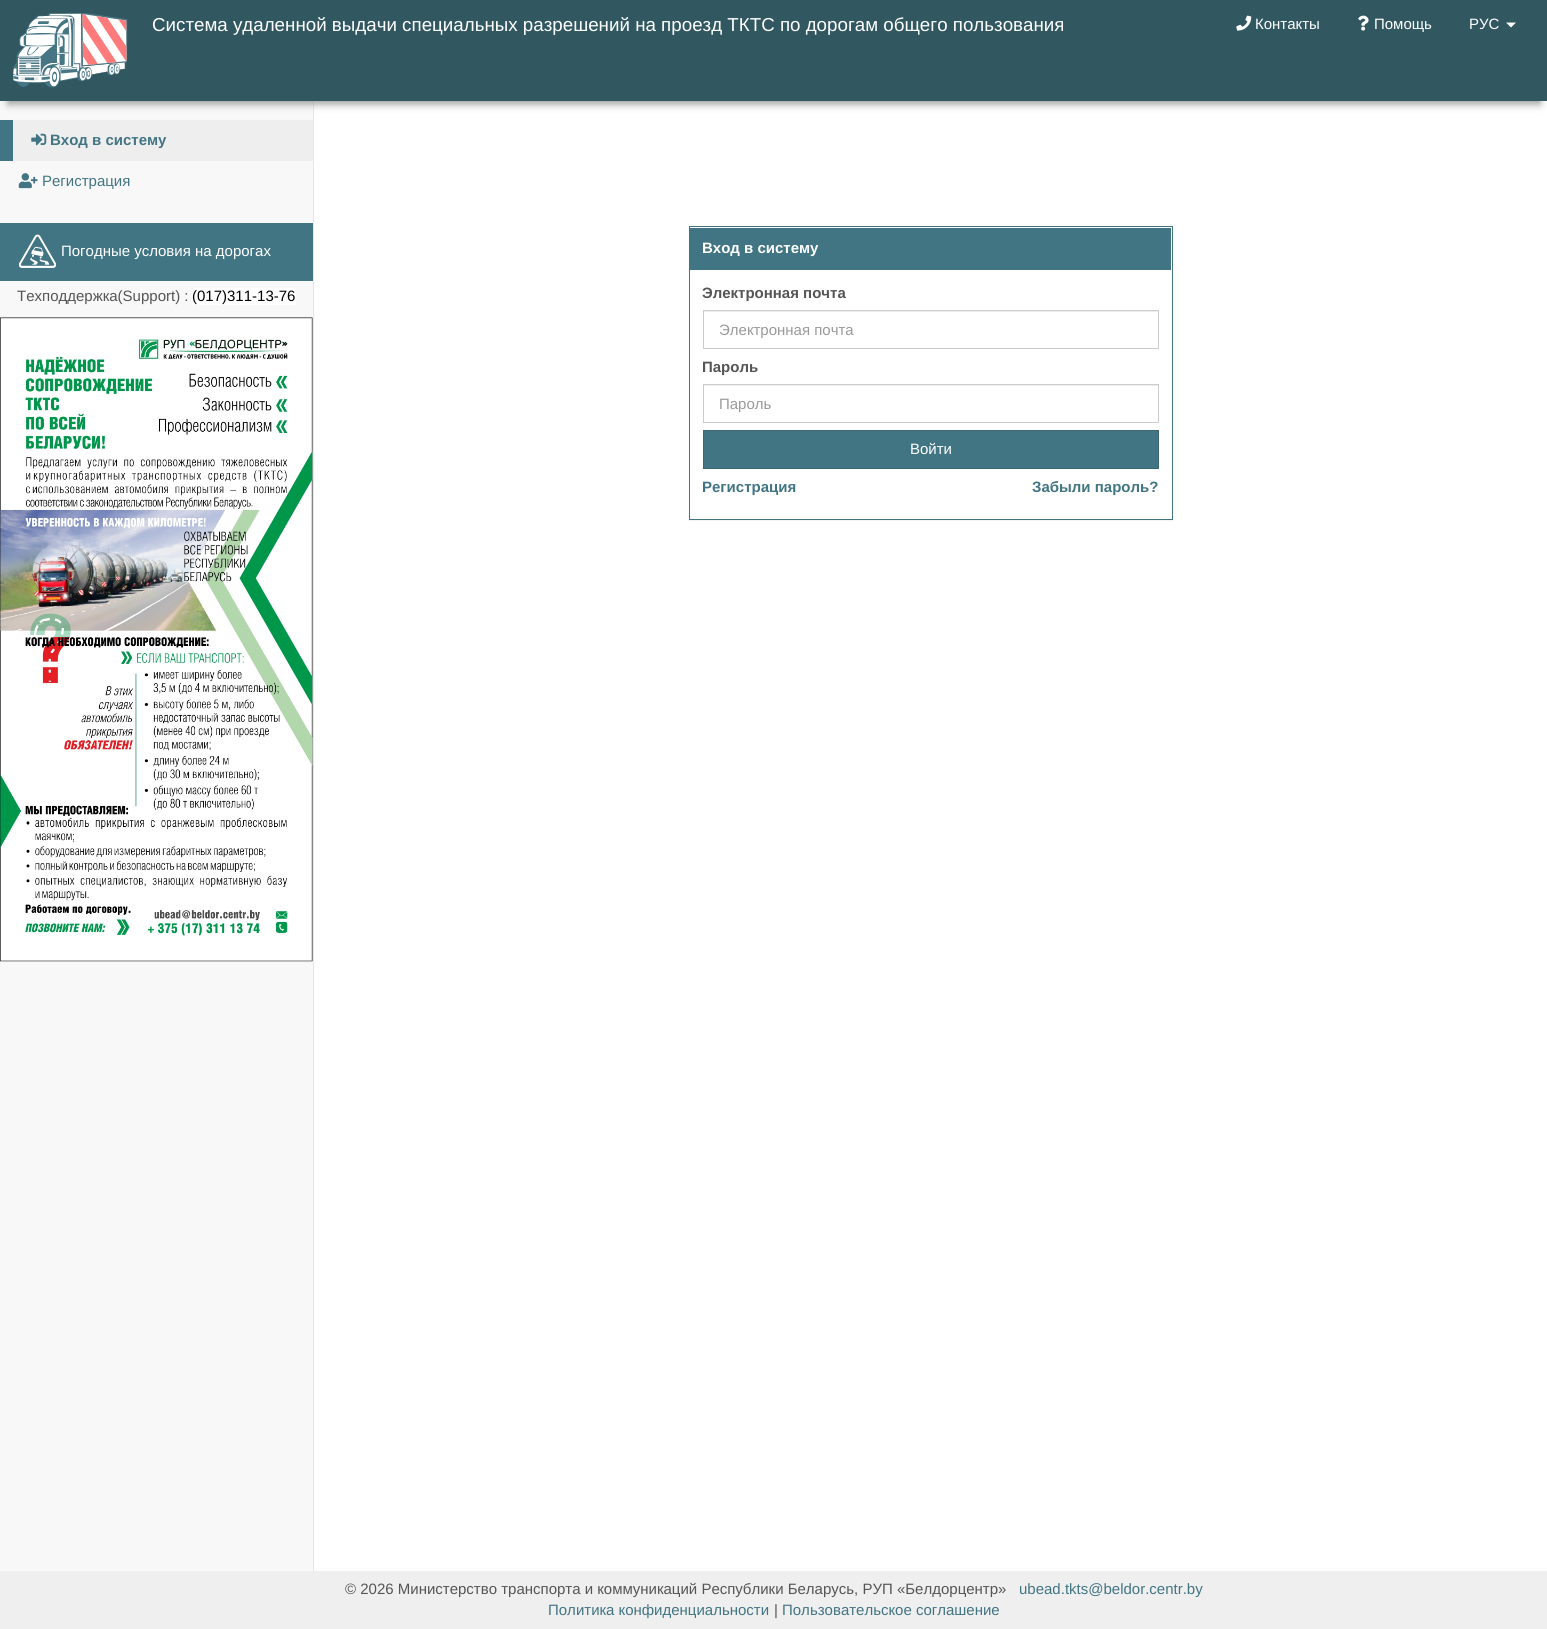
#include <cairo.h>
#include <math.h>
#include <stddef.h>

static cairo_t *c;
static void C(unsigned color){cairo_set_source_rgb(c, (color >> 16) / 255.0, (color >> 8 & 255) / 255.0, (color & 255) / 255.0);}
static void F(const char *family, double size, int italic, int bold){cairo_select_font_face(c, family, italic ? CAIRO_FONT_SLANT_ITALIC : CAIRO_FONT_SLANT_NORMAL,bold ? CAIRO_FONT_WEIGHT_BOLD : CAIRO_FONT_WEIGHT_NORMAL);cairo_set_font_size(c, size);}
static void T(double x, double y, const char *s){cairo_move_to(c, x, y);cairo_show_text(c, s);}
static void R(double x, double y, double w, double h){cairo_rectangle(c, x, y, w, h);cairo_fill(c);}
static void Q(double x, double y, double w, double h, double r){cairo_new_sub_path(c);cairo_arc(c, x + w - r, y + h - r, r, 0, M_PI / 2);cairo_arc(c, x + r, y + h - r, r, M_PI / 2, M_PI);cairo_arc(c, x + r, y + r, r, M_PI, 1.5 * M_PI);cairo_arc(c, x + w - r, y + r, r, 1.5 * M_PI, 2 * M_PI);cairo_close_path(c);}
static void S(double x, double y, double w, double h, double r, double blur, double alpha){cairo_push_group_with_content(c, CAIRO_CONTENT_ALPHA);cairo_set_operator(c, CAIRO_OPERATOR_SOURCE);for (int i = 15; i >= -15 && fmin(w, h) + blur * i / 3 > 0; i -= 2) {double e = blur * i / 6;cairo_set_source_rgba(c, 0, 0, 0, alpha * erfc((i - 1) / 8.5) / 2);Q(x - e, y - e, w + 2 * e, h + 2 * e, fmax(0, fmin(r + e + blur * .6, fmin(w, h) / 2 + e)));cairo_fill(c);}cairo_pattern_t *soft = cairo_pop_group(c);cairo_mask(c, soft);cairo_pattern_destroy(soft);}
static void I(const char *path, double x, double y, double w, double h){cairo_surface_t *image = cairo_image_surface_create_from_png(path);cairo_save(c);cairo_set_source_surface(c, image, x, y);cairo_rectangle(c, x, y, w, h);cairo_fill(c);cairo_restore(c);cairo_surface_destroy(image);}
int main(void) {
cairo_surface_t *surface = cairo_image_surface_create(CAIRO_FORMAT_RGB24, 1547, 1629);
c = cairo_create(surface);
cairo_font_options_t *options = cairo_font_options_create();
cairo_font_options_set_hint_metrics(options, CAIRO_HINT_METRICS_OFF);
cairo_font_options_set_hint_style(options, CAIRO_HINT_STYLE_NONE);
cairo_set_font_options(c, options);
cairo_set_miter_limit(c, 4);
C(0xf8f8f8);
cairo_paint(c);
C(0xffffff);
R(314,101,1233,1470);
C(0xe7e7e7);
R(313,101,1,1470);
C(0x999999);
S(8,18,1532,86,0,4,1);
C(0x315761);
R(0,0,1547,101);
I("1.png",13,13,115,75);
F("Liberation Sans",18.75,0,0);
C(0xffffff);
T(152,31,"Система удаленной выдачи специальных разрешений на проезд ТКТС по дорогам общего пользования");
I("2.png",1236,15,16,16);
F("Liberation Sans",15,0,0);
T(1255,29,"Контакты");
I("3.png",1358,15,11,16);
T(1374,29,"Помощь");
T(1469,29,"РУС");
cairo_new_path(c);
cairo_move_to(c,1506,22.5);
cairo_line_to(c,1516,22.5);
cairo_line_to(c,1511,27.5);
cairo_close_path(c);
cairo_fill(c);
C(0x427583);
R(0,120,13,41);
C(0xeeeeee);
R(13,120,300,41);
I("4.png",31,133,16,13);
F("Liberation Sans",15,0,1);
C(0x427583);
T(50,145,"Вход в систему");
I("5.png",18,173,20,16);
F("Liberation Sans",15,0,0);
T(42,186,"Регистрация");
R(0,223,313,58);
I("6.png",19,234,37,34);
C(0xffffff);
T(61,256,"Погодные условия на дорогах");
C(0x555555);
T(17,301,"Техподдержка(Support) :");
C(0xffffff);
R(193,288,103,17);
C(0x000000);
T(192,301,"(017)311-13-76");
I("7.png",0,317,313,645);
C(0x000000);
S(689,228,484,293,0,.5,.05);
C(0xffffff);
R(690,228,482,291);
cairo_rectangle(c,689.5,226.5,483,293);
C(0x427583);
cairo_set_line_width(c,1);
cairo_stroke(c);
R(690,228,481,42);
F("Liberation Sans",15,0,1);
C(0xffffff);
T(702,253,"Вход в систему");
C(0x555555);
T(702,298,"Электронная почта");
C(0xececec);
R(704,311,454,1);
cairo_rectangle(c,703.5,310.5,455,38);
C(0xcccccc);
cairo_stroke(c);
F("Liberation Sans",15,0,0);
C(0x999999);
T(719,335,"Электронная почта");
F("Liberation Sans",15,0,1);
C(0x555555);
T(702,372,"Пароль");
C(0xececec);
R(704,385,454,1);
cairo_rectangle(c,703.5,384.5,455,38);
C(0xcccccc);
cairo_stroke(c);
F("Liberation Sans",15,0,0);
C(0x999999);
T(719,409,"Пароль");
C(0x427583);
cairo_rectangle(c,703.5,430.5,455,38);
cairo_fill_preserve(c);
C(0x396672);
cairo_stroke(c);
C(0xffffff);
T(910,454,"Войти");
F("Liberation Sans",15,0,1);
C(0x427583);
T(702,492,"Регистрация");
T(1032,492,"Забыли пароль?");
C(0xefefef);
R(0,1571,1547,58);
F("Liberation Sans",15,0,0);
C(0x555555);
T(345,1594,"© 2026 Министерство транспорта и коммуникаций Республики Беларусь, РУП «Белдорцентр»");
C(0x427583);
T(1019,1594,"ubead.tkts@beldor.centr.by");
T(548,1615,"Политика конфиденциальности");
C(0x555555);
T(774,1615,"|");
C(0x427583);
T(782,1615,"Пользовательское соглашение");
cairo_surface_write_to_png(surface, "o.png");
cairo_font_options_destroy(options);
cairo_destroy(c);
cairo_surface_destroy(surface);
return 0;
}
